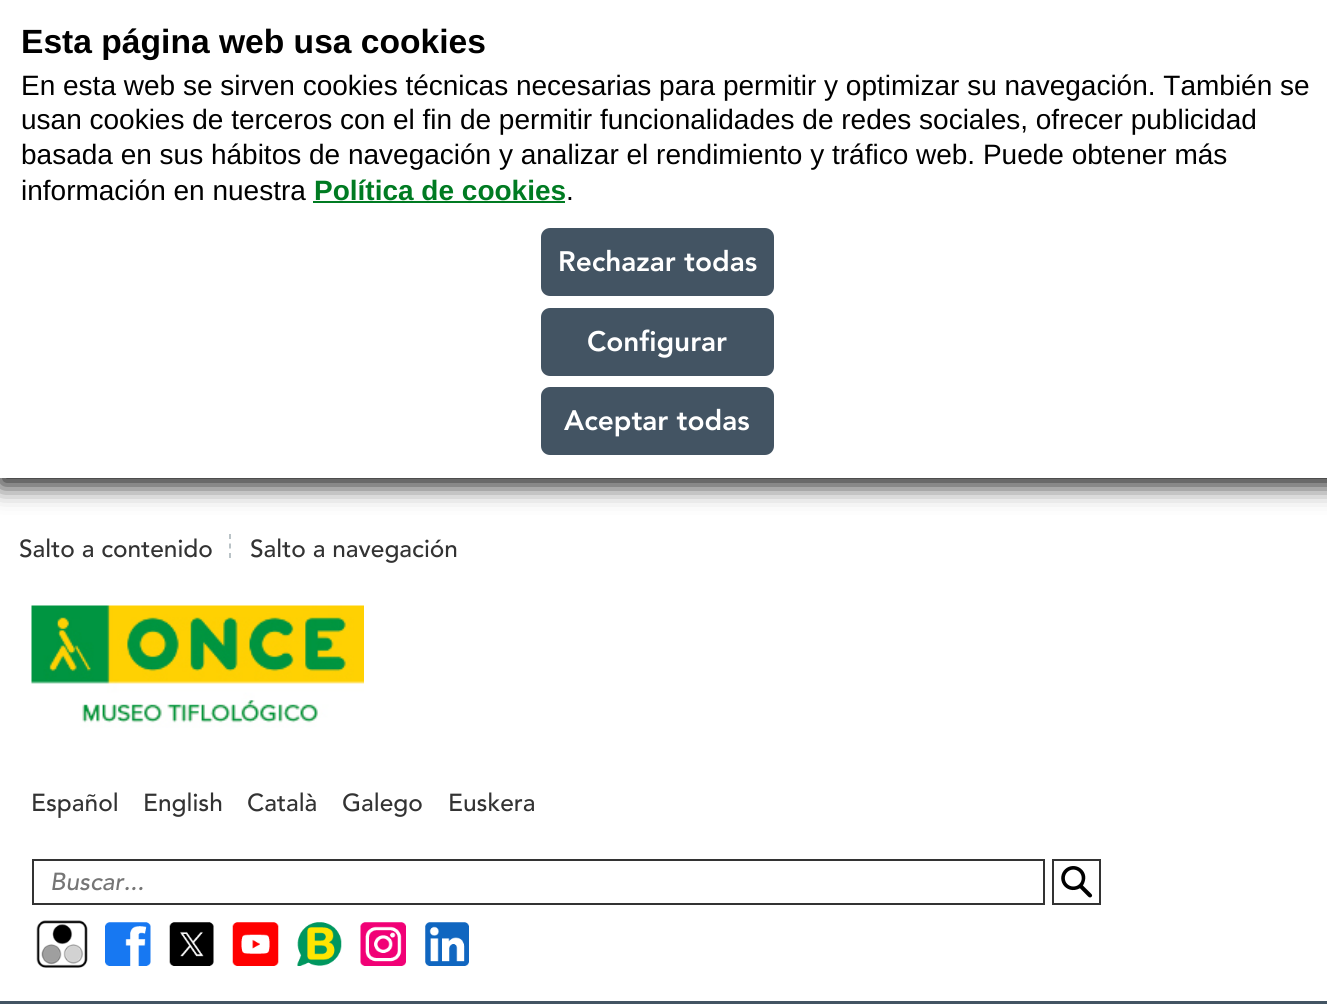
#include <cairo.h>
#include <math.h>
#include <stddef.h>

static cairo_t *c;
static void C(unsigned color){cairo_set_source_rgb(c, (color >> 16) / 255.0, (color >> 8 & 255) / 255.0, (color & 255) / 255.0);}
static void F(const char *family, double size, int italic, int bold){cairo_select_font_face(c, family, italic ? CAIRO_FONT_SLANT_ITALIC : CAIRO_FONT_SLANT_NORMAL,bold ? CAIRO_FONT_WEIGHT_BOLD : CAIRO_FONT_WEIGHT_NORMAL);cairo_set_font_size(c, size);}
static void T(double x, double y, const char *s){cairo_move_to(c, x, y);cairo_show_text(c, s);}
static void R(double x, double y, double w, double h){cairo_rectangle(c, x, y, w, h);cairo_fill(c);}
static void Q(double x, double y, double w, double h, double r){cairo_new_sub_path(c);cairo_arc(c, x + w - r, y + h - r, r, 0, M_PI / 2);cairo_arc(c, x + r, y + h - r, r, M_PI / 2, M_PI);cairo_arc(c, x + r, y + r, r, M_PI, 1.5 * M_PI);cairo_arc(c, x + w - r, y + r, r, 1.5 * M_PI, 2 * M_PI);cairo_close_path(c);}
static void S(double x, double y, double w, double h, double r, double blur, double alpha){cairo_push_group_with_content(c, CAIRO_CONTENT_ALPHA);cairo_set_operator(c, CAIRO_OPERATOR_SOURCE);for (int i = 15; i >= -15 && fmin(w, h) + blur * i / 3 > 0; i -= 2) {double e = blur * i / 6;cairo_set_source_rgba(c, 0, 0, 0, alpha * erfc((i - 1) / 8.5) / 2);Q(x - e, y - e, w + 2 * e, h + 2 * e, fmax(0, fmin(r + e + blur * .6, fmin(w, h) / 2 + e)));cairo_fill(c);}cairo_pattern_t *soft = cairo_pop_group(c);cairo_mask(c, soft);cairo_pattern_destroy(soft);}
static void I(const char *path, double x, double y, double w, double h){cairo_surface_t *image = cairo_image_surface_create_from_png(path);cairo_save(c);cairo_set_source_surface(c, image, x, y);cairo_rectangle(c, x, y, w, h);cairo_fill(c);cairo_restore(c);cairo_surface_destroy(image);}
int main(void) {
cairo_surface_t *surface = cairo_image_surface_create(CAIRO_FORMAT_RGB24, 1327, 1004);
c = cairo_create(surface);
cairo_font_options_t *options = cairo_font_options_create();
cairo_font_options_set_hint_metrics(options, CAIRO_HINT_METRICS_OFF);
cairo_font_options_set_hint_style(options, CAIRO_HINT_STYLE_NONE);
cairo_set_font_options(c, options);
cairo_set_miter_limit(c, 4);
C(0xffffff);
cairo_paint(c);
C(0x121212);
S(0,0,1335,485,0,12,1);
C(0xffffff);
R(0,0,1327,478);
F("Liberation Sans",33.6,0,1);
C(0x000000);
T(21,53,"Esta página web usa cookies");
F("Liberation Sans",28,0,0);
T(21,95,"En esta web se sirven cookies técnicas necesarias para permitir y optimizar su navegación. También se");
T(21,129,"usan cookies de terceros con el fin de permitir funcionalidades de redes sociales, ofrecer publicidad");
T(21,164,"basada en sus hábitos de navegación y analizar el rendimiento y tráfico web. Puede obtener más");
T(21,200,"información en nuestra");
F("Liberation Sans",28,0,1);
C(0x007b22);
T(314,200,"Política de cookies");
R(313,201,252,2);
F("Liberation Sans",28,0,0);
C(0x000000);
T(566,200,".");
C(0x435463);
Q(543,230,229,64,7);
cairo_fill_preserve(c);
cairo_set_line_width(c,4);
cairo_stroke(c);
F("Avenir Black",28,0,0);
C(0xffffff);
T(558,271,"Rechazar todas");
C(0x435463);
Q(543,310,229,64,7);
cairo_fill_preserve(c);
cairo_stroke(c);
C(0xffffff);
T(587,351,"Configurar");
C(0x435463);
Q(543,389,229,64,7);
cairo_fill_preserve(c);
cairo_stroke(c);
C(0xffffff);
T(564,430,"Aceptar todas");
F("Avenir Medium",24.5,0,0);
C(0x333333);
T(19,557,"Salto a contenido");
cairo_new_path(c);
cairo_move_to(c,230,534);
cairo_line_to(c,230,539);
cairo_move_to(c,230,543.5);
cairo_line_to(c,230,548.5);
cairo_move_to(c,230,553);
cairo_line_to(c,230,558);
C(0xb3bdc1);
cairo_set_line_width(c,1.8);
cairo_stroke(c);
C(0x333333);
T(250,557,"Salto a navegación");
I("1.png",31,605,333,123);
T(31,811,"Español");
T(143,811,"English");
T(247,811,"Català");
T(342,811,"Galego");
T(448,811,"Euskera");
cairo_rectangle(c,33,860,1011,44);
cairo_set_line_width(c,2);
cairo_stroke(c);
F("Avenir Medium",24.5,1,0);
C(0x757575);
T(50,890,"Buscar...");
cairo_rectangle(c,1053,860,47,44);
C(0x333333);
cairo_stroke(c);
I("2.png",1061,866,32,32);
I("3.png",36,920,52,48);
I("4.png",105,922,46,44);
I("5.png",169,922,45,44);
I("6.png",232,922,47,44);
I("7.png",297,922,45,44);
I("8.png",360,922,46,44);
I("9.png",425,922,44,44);
C(0x435463);
R(0,1001,1327,3);
cairo_surface_write_to_png(surface, "o.png");
cairo_font_options_destroy(options);
cairo_destroy(c);
cairo_surface_destroy(surface);
return 0;
}
